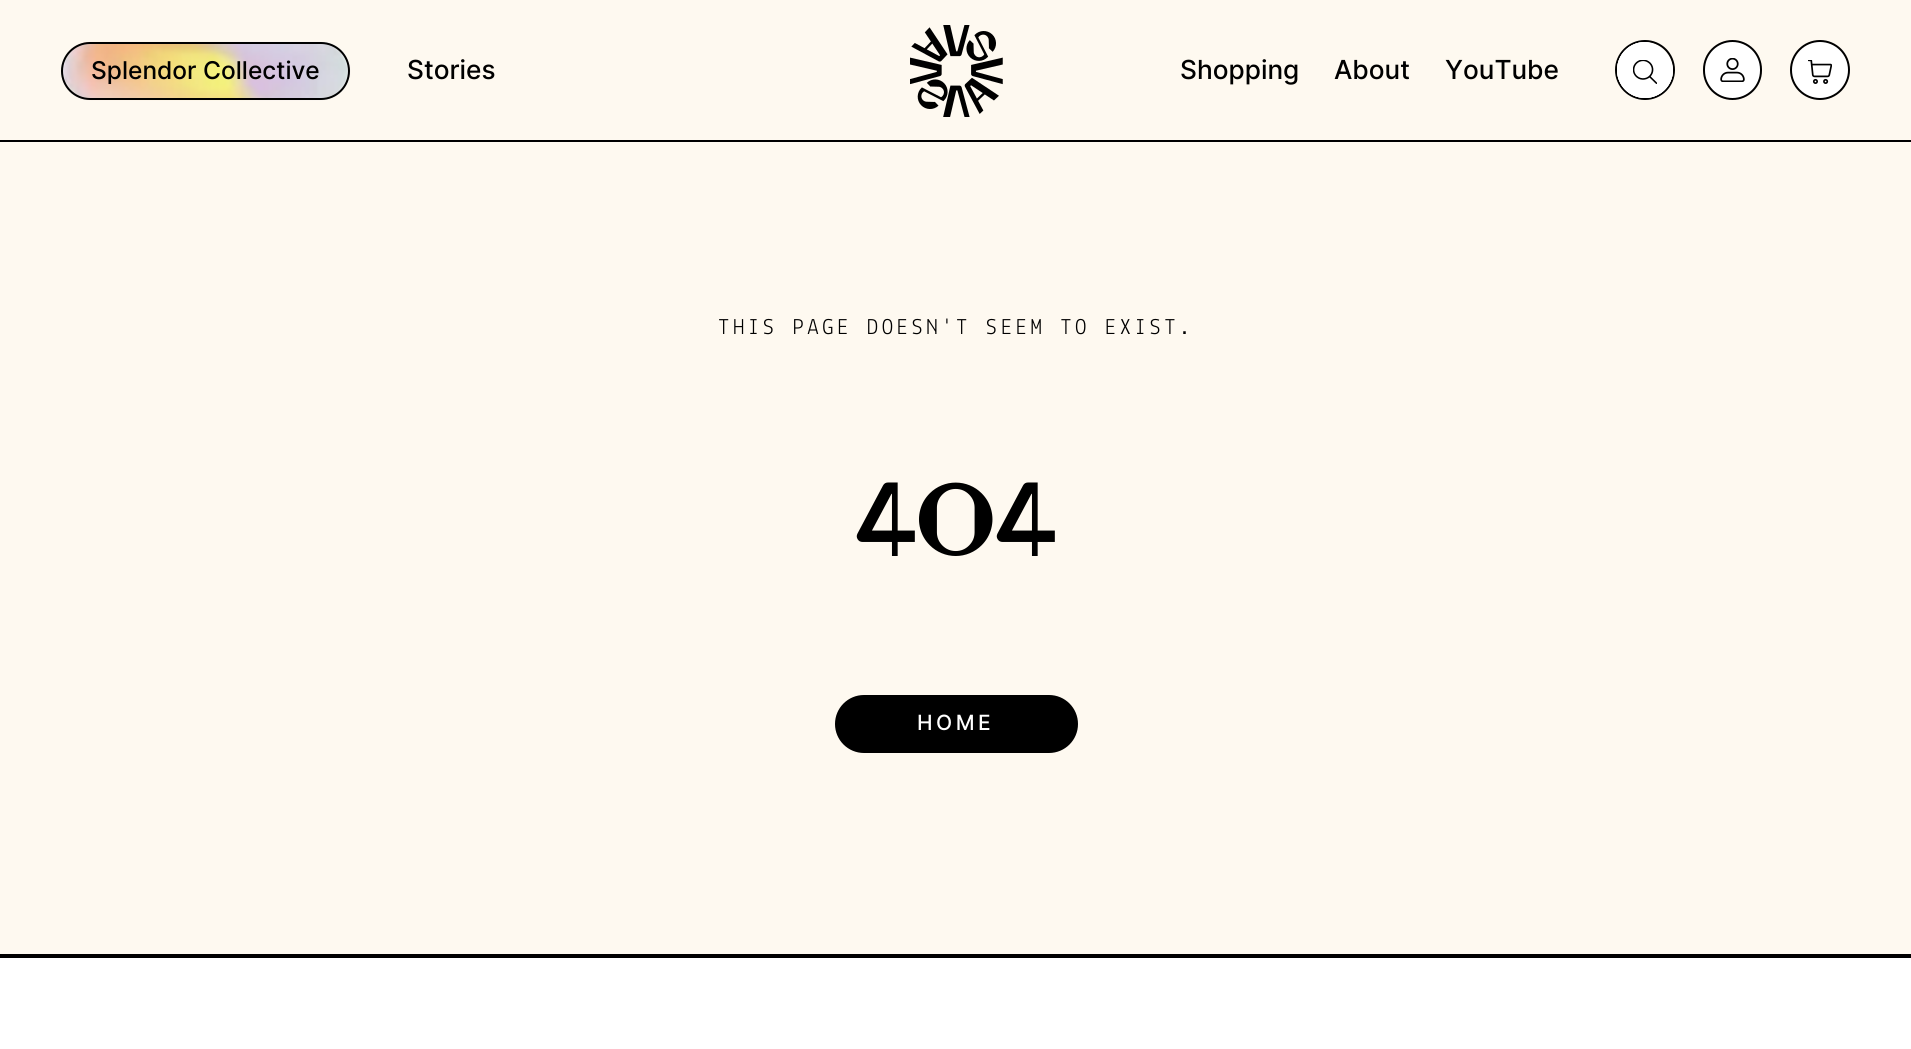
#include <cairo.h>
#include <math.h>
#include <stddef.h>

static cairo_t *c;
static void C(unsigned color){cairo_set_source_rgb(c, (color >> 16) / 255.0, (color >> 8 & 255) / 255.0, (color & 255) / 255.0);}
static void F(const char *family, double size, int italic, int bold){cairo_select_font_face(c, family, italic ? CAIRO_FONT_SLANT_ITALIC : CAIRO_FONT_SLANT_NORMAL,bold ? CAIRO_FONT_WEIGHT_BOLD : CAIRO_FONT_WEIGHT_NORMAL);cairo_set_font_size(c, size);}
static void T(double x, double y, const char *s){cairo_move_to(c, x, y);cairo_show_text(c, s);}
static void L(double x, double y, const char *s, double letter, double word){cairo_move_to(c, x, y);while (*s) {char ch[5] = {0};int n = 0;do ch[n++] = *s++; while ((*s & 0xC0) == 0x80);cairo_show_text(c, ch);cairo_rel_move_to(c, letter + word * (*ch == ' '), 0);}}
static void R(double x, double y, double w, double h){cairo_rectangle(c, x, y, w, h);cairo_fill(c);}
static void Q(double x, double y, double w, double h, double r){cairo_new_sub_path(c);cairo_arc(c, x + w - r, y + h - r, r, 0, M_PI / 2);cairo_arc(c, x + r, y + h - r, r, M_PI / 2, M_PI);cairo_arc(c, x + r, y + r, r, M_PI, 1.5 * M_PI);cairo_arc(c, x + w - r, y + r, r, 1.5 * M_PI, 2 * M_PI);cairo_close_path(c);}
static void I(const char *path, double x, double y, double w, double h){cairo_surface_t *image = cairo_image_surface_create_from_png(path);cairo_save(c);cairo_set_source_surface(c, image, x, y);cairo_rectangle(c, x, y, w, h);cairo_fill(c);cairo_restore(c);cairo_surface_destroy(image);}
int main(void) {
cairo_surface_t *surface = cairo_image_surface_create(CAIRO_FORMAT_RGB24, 1911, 1049);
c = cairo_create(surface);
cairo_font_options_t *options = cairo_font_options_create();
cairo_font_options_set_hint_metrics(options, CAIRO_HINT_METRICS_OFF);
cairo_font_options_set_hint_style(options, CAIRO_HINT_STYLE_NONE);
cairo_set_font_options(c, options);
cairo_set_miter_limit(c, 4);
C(0xfef9f0);
cairo_paint(c);
C(0x000000);
R(0,140,1911,2);
I("1.png",61,41,290,60);
Q(62,43,287,56,28);
cairo_stroke(c);
F("Inter Medium",24.5,0,0);
T(91,79,"Splendor Collective");
F("Inter Medium",26.25,0,0);
T(407,79,"Stories");
I("2.png",910,25,93,92);
T(1180,79,"Shopping");
T(1334,79,"About");
T(1445,79,"YouTube");
cairo_new_path(c);
cairo_arc(c,1645,70,29,0,2 * M_PI);
cairo_stroke(c);
cairo_save(c);
Q(1617,42,56,56,28);
cairo_clip(c);
C(0xffffff);
Q(1376,42,297,60,30);
cairo_fill(c);
cairo_restore(c);
cairo_save(c);
Q(1376,42,297,60,30);
cairo_clip(c);
C(0xffffff);
cairo_arc(c,1645,70,28,0,2 * M_PI);
cairo_fill(c);
cairo_restore(c);
I("3.png",1633,60,24,24);
C(0xffffff);
Q(1704,41,57,58,28.5);
cairo_fill_preserve(c);
C(0x000000);
cairo_stroke(c);
I("4.png",1720,58,25,24);
C(0xffffff);
cairo_arc(c,1820,70,29,0,2 * M_PI);
cairo_fill_preserve(c);
C(0x000000);
cairo_stroke(c);
I("5.png",1808,60,24,24);
R(0,954,1911,4);
F("Lekton",22.75,0,0);
L(718,334,"THIS PAGE DOESN'T SEEM TO EXIST.",3.5,0);
F("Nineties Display",105,0,0);
T(855,556,"404");
Q(836,696,241,56,28);
cairo_fill_preserve(c);
cairo_stroke(c);
F("Inter Medium",21,0,0);
C(0xffffff);
L(917,730,"HOME",3.5,0);
R(0,958,1911,91);
cairo_surface_write_to_png(surface, "o.png");
cairo_font_options_destroy(options);
cairo_destroy(c);
cairo_surface_destroy(surface);
return 0;
}
